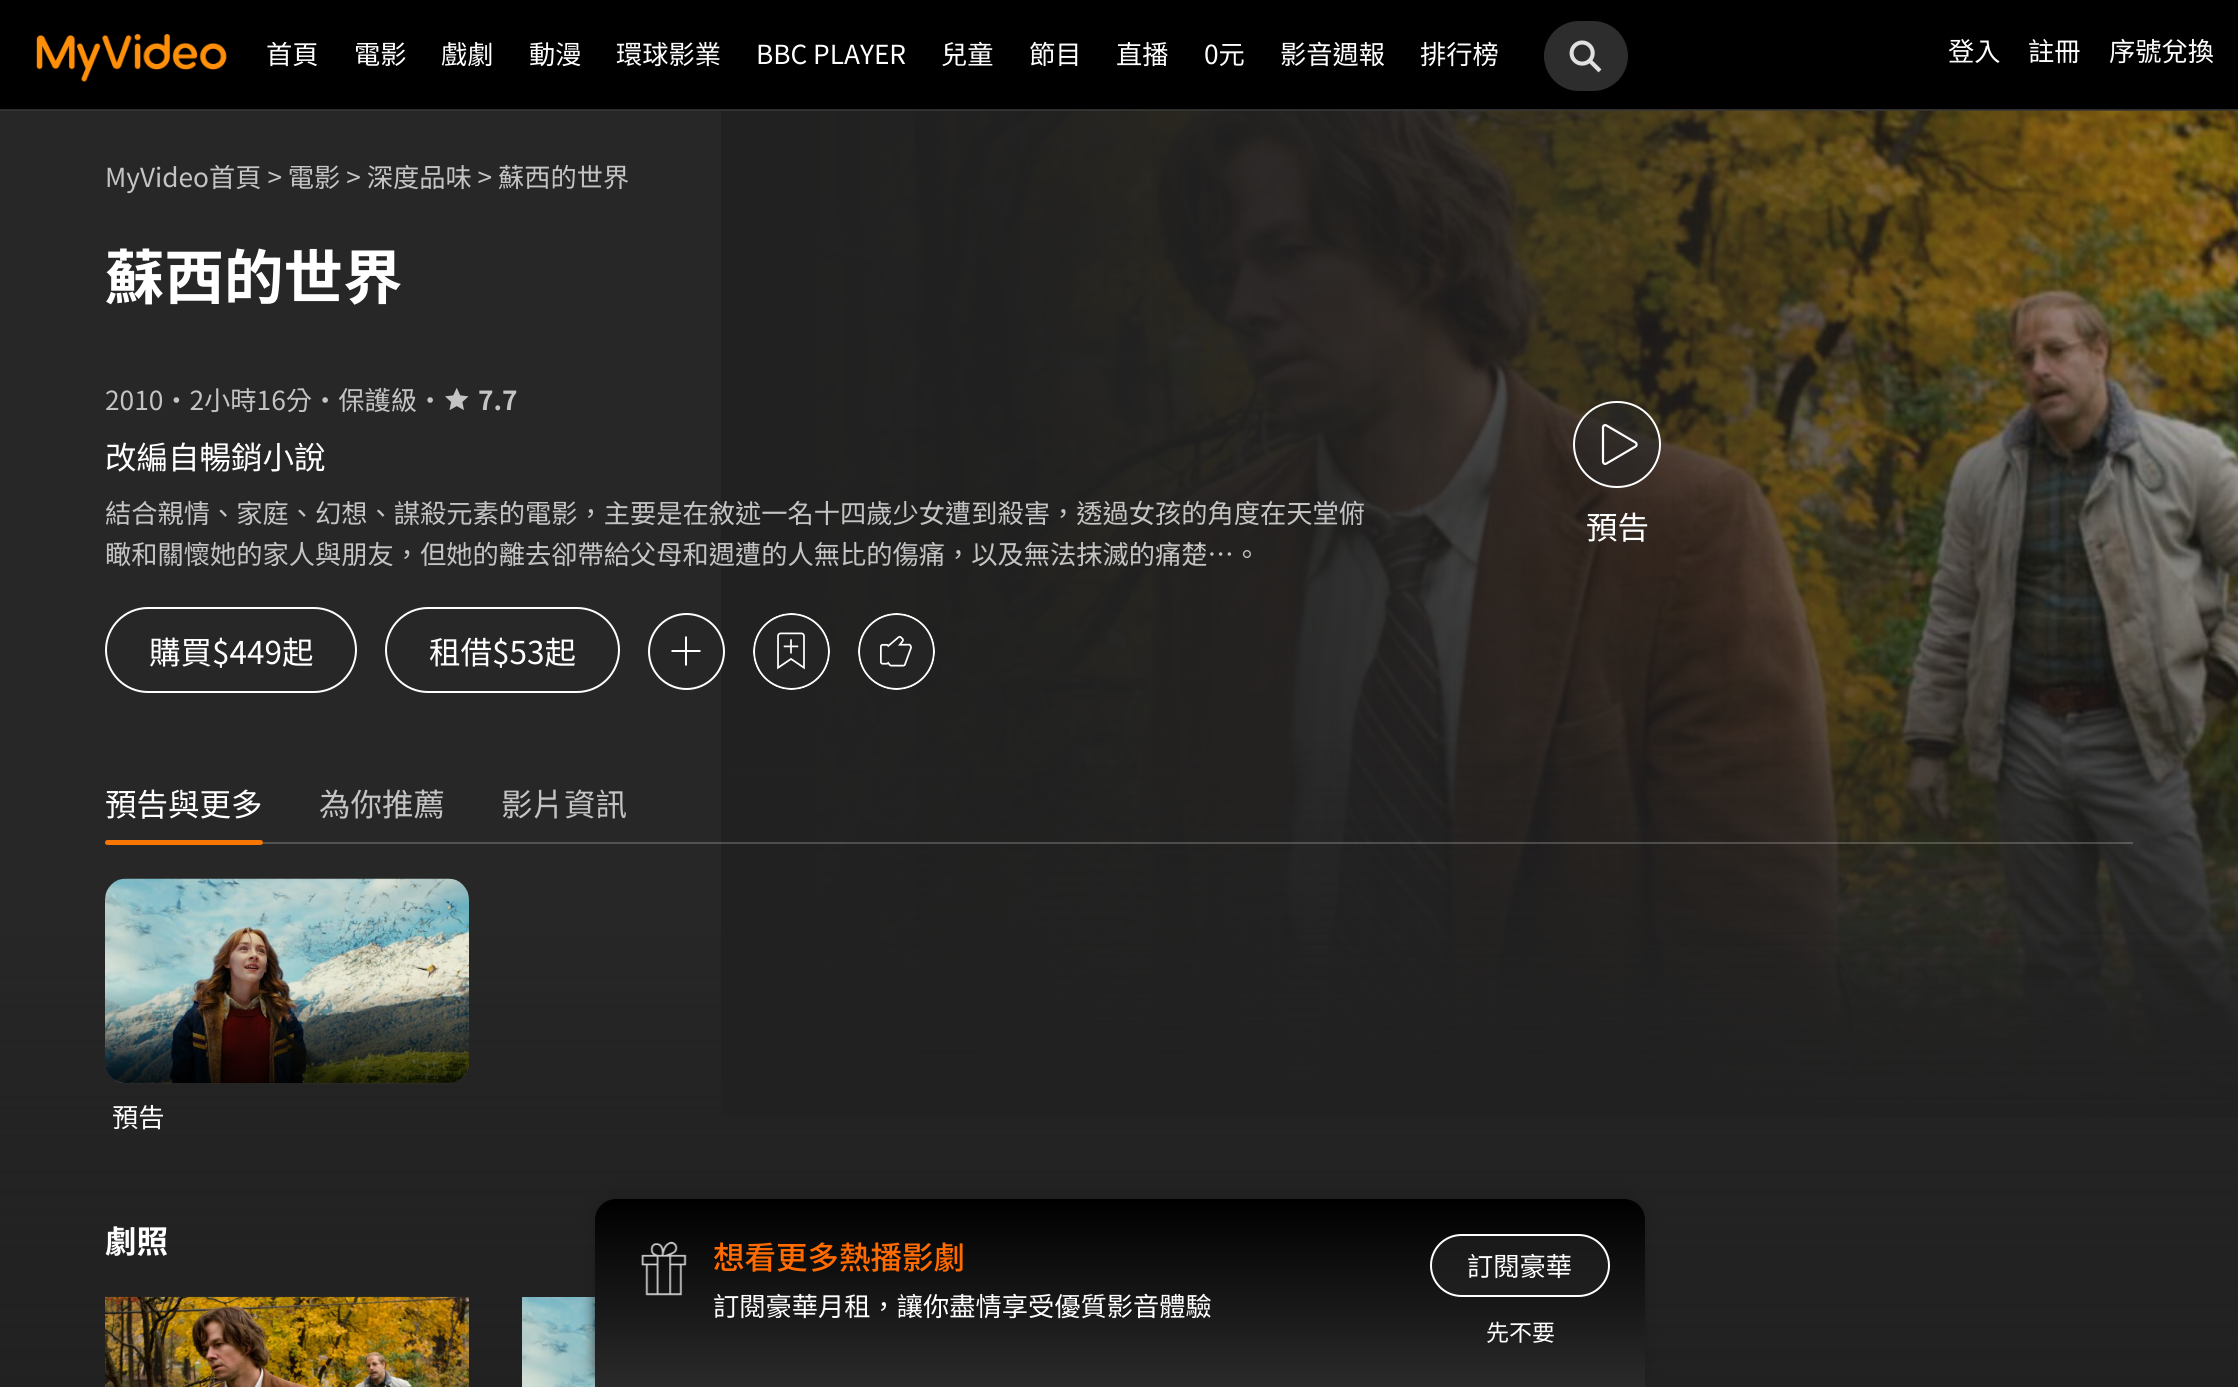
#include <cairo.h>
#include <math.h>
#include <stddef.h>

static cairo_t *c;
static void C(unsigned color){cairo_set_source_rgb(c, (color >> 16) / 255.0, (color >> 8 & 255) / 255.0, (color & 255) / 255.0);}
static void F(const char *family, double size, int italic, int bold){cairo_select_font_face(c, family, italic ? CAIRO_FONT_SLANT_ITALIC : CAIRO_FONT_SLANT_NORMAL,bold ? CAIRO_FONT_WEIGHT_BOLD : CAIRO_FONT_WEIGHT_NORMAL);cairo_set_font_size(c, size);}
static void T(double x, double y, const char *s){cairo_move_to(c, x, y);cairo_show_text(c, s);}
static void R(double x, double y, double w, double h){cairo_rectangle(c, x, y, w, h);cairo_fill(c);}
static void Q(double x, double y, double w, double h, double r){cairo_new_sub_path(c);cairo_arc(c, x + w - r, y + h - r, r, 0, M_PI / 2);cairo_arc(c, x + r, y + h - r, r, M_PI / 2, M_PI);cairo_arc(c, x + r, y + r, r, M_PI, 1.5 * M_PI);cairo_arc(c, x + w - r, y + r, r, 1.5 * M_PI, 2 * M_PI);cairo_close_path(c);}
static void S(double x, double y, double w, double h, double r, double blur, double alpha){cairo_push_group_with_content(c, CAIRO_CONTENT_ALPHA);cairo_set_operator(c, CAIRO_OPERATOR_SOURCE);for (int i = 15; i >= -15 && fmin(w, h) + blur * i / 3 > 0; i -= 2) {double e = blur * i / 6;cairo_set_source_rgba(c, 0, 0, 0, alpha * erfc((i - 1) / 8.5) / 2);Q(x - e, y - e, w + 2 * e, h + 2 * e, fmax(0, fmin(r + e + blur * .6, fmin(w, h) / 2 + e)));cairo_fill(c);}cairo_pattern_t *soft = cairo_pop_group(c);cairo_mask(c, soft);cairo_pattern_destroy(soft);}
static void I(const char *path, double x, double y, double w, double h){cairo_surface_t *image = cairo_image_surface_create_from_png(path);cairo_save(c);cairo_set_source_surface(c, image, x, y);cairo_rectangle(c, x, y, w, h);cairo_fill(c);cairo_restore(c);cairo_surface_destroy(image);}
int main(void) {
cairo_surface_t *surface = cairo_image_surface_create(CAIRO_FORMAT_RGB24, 2238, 1387);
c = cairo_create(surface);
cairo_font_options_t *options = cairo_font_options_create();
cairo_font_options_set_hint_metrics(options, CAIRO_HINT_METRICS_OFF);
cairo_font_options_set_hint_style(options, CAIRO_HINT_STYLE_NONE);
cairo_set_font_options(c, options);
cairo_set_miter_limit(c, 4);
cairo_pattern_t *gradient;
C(0x272727);
cairo_paint(c);
C(0x000000);
R(0,0,2238,110);
I("3.png",816,110,1422,1005);
gradient = cairo_pattern_create_linear(1621,1117,1620,-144);
cairo_pattern_add_color_stop_rgba(gradient,.06,0.129,0.129,0.129,.7);
cairo_pattern_add_color_stop_rgba(gradient,.43,0.129,0.129,0.129,0);
cairo_set_source(c,gradient);
cairo_pattern_destroy(gradient);
R(816,589,1422,526);
gradient = cairo_pattern_create_linear(721,487,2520,486);
cairo_pattern_add_color_stop_rgba(gradient,0,0.129,0.129,0.129,1);
cairo_pattern_add_color_stop_rgba(gradient,.18,0.129,0.129,0.129,.98);
cairo_pattern_add_color_stop_rgba(gradient,.34,0.129,0.129,0.129,.92);
cairo_pattern_add_color_stop_rgba(gradient,1,0.129,0.129,0.129,.2);
cairo_set_source(c,gradient);
cairo_pattern_destroy(gradient);
R(721,110,1517,1005);
cairo_set_source_rgba(c,0.22,0.22,0.22,0.8);
R(0,109,2238,2);
I("1.png",36,33,191,49);
F("Noto Sans TC",26.25,0,0);
C(0xffffff);
T(266,64,"首頁");
T(354,64,"電影");
T(441,64,"戲劇");
T(529,64,"動漫");
T(616,64,"環球影業");
T(756,64,"BBC PLAYER");
T(941,64,"兒童");
T(1029,64,"節目");
T(1116,64,"直播");
T(1204,64,"0元");
T(1280,64,"影音週報");
T(1420,64,"排行榜");
C(0x2d2d2d);
Q(1544,21,84,70,35);
cairo_fill(c);
I("2.png",1569,40,33,33);
C(0xffffff);
T(1948,61,"登入");
T(2028,61,"註冊");
T(2109,61,"序號兌換");
gradient = cairo_pattern_create_linear(1621,1117,1621,-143);
cairo_pattern_add_color_stop_rgba(gradient,0,0.129,0.129,0.129,1);
cairo_pattern_add_color_stop_rgba(gradient,.31,0.129,0.129,0.129,0);
cairo_set_source(c,gradient);
cairo_pattern_destroy(gradient);
R(721,742,1517,375);
gradient = cairo_pattern_create_linear(1119,108,1119,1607);
cairo_pattern_add_color_stop_rgba(gradient,.51,0.129,0.129,0.129,0);
cairo_pattern_add_color_stop_rgba(gradient,.55,0.129,0.129,0.129,.1);
cairo_pattern_add_color_stop_rgba(gradient,.67,0.129,0.129,0.129,.6);
cairo_pattern_add_color_stop_rgba(gradient,.79,0.129,0.129,0.129,.85);
cairo_pattern_add_color_stop_rgba(gradient,.88,0.129,0.129,0.129,1);
cairo_set_source(c,gradient);
cairo_pattern_destroy(gradient);
R(0,932,2238,455);
C(0xc4c4c4);
T(105,187,"MyVideo首頁 > 電影 > 深度品味 > 蘇西的世界");
F("Noto Sans TC",59.5,0,1);
C(0xffffff);
T(105,299,"蘇西的世界");
F("Noto Sans TC",26.25,0,0);
C(0xc4c4c4);
T(105,410,"2010・2小時16分・保護級・");
I("4.png",445,388,24,22);
F("Noto Sans TC",26.25,0,1);
T(478,410,"7.7");
F("Noto Sans TC",31.5,0,0);
C(0xffffff);
T(105,469,"改編自暢銷小說");
F("Noto Sans TC",26.25,0,0);
C(0xc4c4c4);
T(105,523,"結合親情、家庭、幻想、謀殺元素的電影，主要是在敘述一名十四歲少女遭到殺害，透過女孩的角度在天堂俯");
T(105,564,"瞰和關懷她的家人與朋友，但她的離去卻帶給父母和週遭的人無比的傷痛，以及無法抹滅的痛楚…。");
Q(106,608,250,84,42);
C(0xffffff);
cairo_stroke(c);
F("Noto Sans TC",31.5,0,0);
T(149,664,"購買$449起");
Q(386,608,233,84,42);
cairo_stroke(c);
T(429,664,"租借$53起");
cairo_set_source_rgba(c,0.149,0.149,0.149,0.6);
cairo_new_path(c);
cairo_arc(c,686.5,651.5,38.5,0,2 * M_PI);
cairo_fill(c);
C(0xffffff);
cairo_set_fill_rule(c,CAIRO_FILL_RULE_EVEN_ODD);
cairo_new_path(c);
cairo_move_to(c,672,650);
cairo_line_to(c,671.5,650);
cairo_line_to(c,671.5,652);
cairo_line_to(c,685,652);
cairo_line_to(c,685,665.5);
cairo_line_to(c,687,665.5);
cairo_line_to(c,687,652);
cairo_line_to(c,700.5,652);
cairo_line_to(c,700.5,650);
cairo_line_to(c,687,650);
cairo_line_to(c,687,636.5);
cairo_line_to(c,685,636.5);
cairo_line_to(c,685,650);
cairo_close_path(c);
cairo_fill(c);
cairo_arc(c,686.5,651.5,37.5,0,2 * M_PI);
cairo_stroke(c);
C(0x242424);
cairo_arc(c,791.5,651.5,38.5,0,2 * M_PI);
cairo_fill(c);
I("5.png",753,613,77,77);
cairo_arc(c,896.5,651.5,38.5,0,2 * M_PI);
cairo_fill(c);
I("6.png",858,613,77,77);
cairo_set_source_rgba(c,0.149,0.149,0.149,0.6);
Q(1573,401,88,87,43.5);
cairo_fill(c);
cairo_new_path(c);
cairo_move_to(c,1606.5,463.5);
cairo_curve_to(c,1605,464.5,1603,463.5,1603,461.5);
cairo_line_to(c,1603,427.5);
cairo_curve_to(c,1603,425.5,1605,424.5,1606.5,425.5);
cairo_line_to(c,1635.5,442.5);
cairo_curve_to(c,1637,443.5,1637,445.5,1635.5,446.5);
cairo_close_path(c);
C(0xffffff);
cairo_set_line_width(c,2.2);
cairo_stroke(c);
Q(1574,402,86,85,42.5);
cairo_set_line_width(c,2);
cairo_stroke(c);
T(1586,539,"預告");
cairo_set_source_rgba(c,1,1,1,0.2);
R(105,842,2028,2);
C(0xffffff);
T(105,816,"預告與更多");
C(0xc4c4c4);
T(319,816,"為你推薦");
T(501,816,"影片資訊");
C(0xf57600);
Q(105,840,158,5,2.5);
cairo_fill(c);
I("7.png",105,878,364,206);
gradient = cairo_pattern_create_linear(286,1086,288,876);
cairo_pattern_add_color_stop_rgba(gradient,0,0,0,0,.8);
cairo_pattern_add_color_stop_rgba(gradient,.28,0,0,0,.29);
cairo_pattern_add_color_stop_rgba(gradient,.47,0,0,0,0);
cairo_set_source(c,gradient);
cairo_pattern_destroy(gradient);
Q(105,879,364,204,21);
cairo_fill(c);
F("Noto Sans TC",26.25,0,0);
C(0xffffff);
T(112,1127,"預告");
F("Noto Sans TC",31.5,0,1);
T(105,1253,"劇照");
I("8.png",105,1296,364,91);
I("9.png",522,1297,73,90);
C(0x1b1b1b);
S(595,1197,1050,189,21,7,.8);
gradient = cairo_pattern_create_linear(1120,1199,1120,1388);
cairo_pattern_add_color_stop_rgba(gradient,0,0,0,0,1);
cairo_pattern_add_color_stop_rgba(gradient,1,0.165,0.165,0.165,1);
cairo_set_source(c,gradient);
cairo_pattern_destroy(gradient);
cairo_new_path(c);
cairo_move_to(c,616,1199);
cairo_line_to(c,1624,1199);
cairo_curve_to(c,1635.5,1199,1645,1208.5,1645,1220);
cairo_line_to(c,1645,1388);
cairo_line_to(c,595,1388);
cairo_line_to(c,595,1220);
cairo_curve_to(c,595,1208.5,604.5,1199,616,1199);
cairo_close_path(c);
cairo_fill(c);
I("10.png",641,1241,46,55);
F("Noto Sans TC Medium",31.5,0,0);
C(0xff6b00);
T(713,1269,"想看更多熱播影劇");
F("Noto Sans TC",26.25,0,0);
C(0xffffff);
T(713,1316,"訂閱豪華月租，讓你盡情享受優質影音體驗");
cairo_set_source_rgba(c,0.149,0.149,0.149,0.6);
Q(1431,1235,178,61,30.5);
cairo_fill_preserve(c);
C(0xffffff);
cairo_stroke(c);
T(1467,1276,"訂閱豪華");
F("Noto Sans TC",23,0,0);
T(1486,1341,"先不要");
cairo_surface_write_to_png(surface, "o.png");
cairo_font_options_destroy(options);
cairo_destroy(c);
cairo_surface_destroy(surface);
return 0;
}
